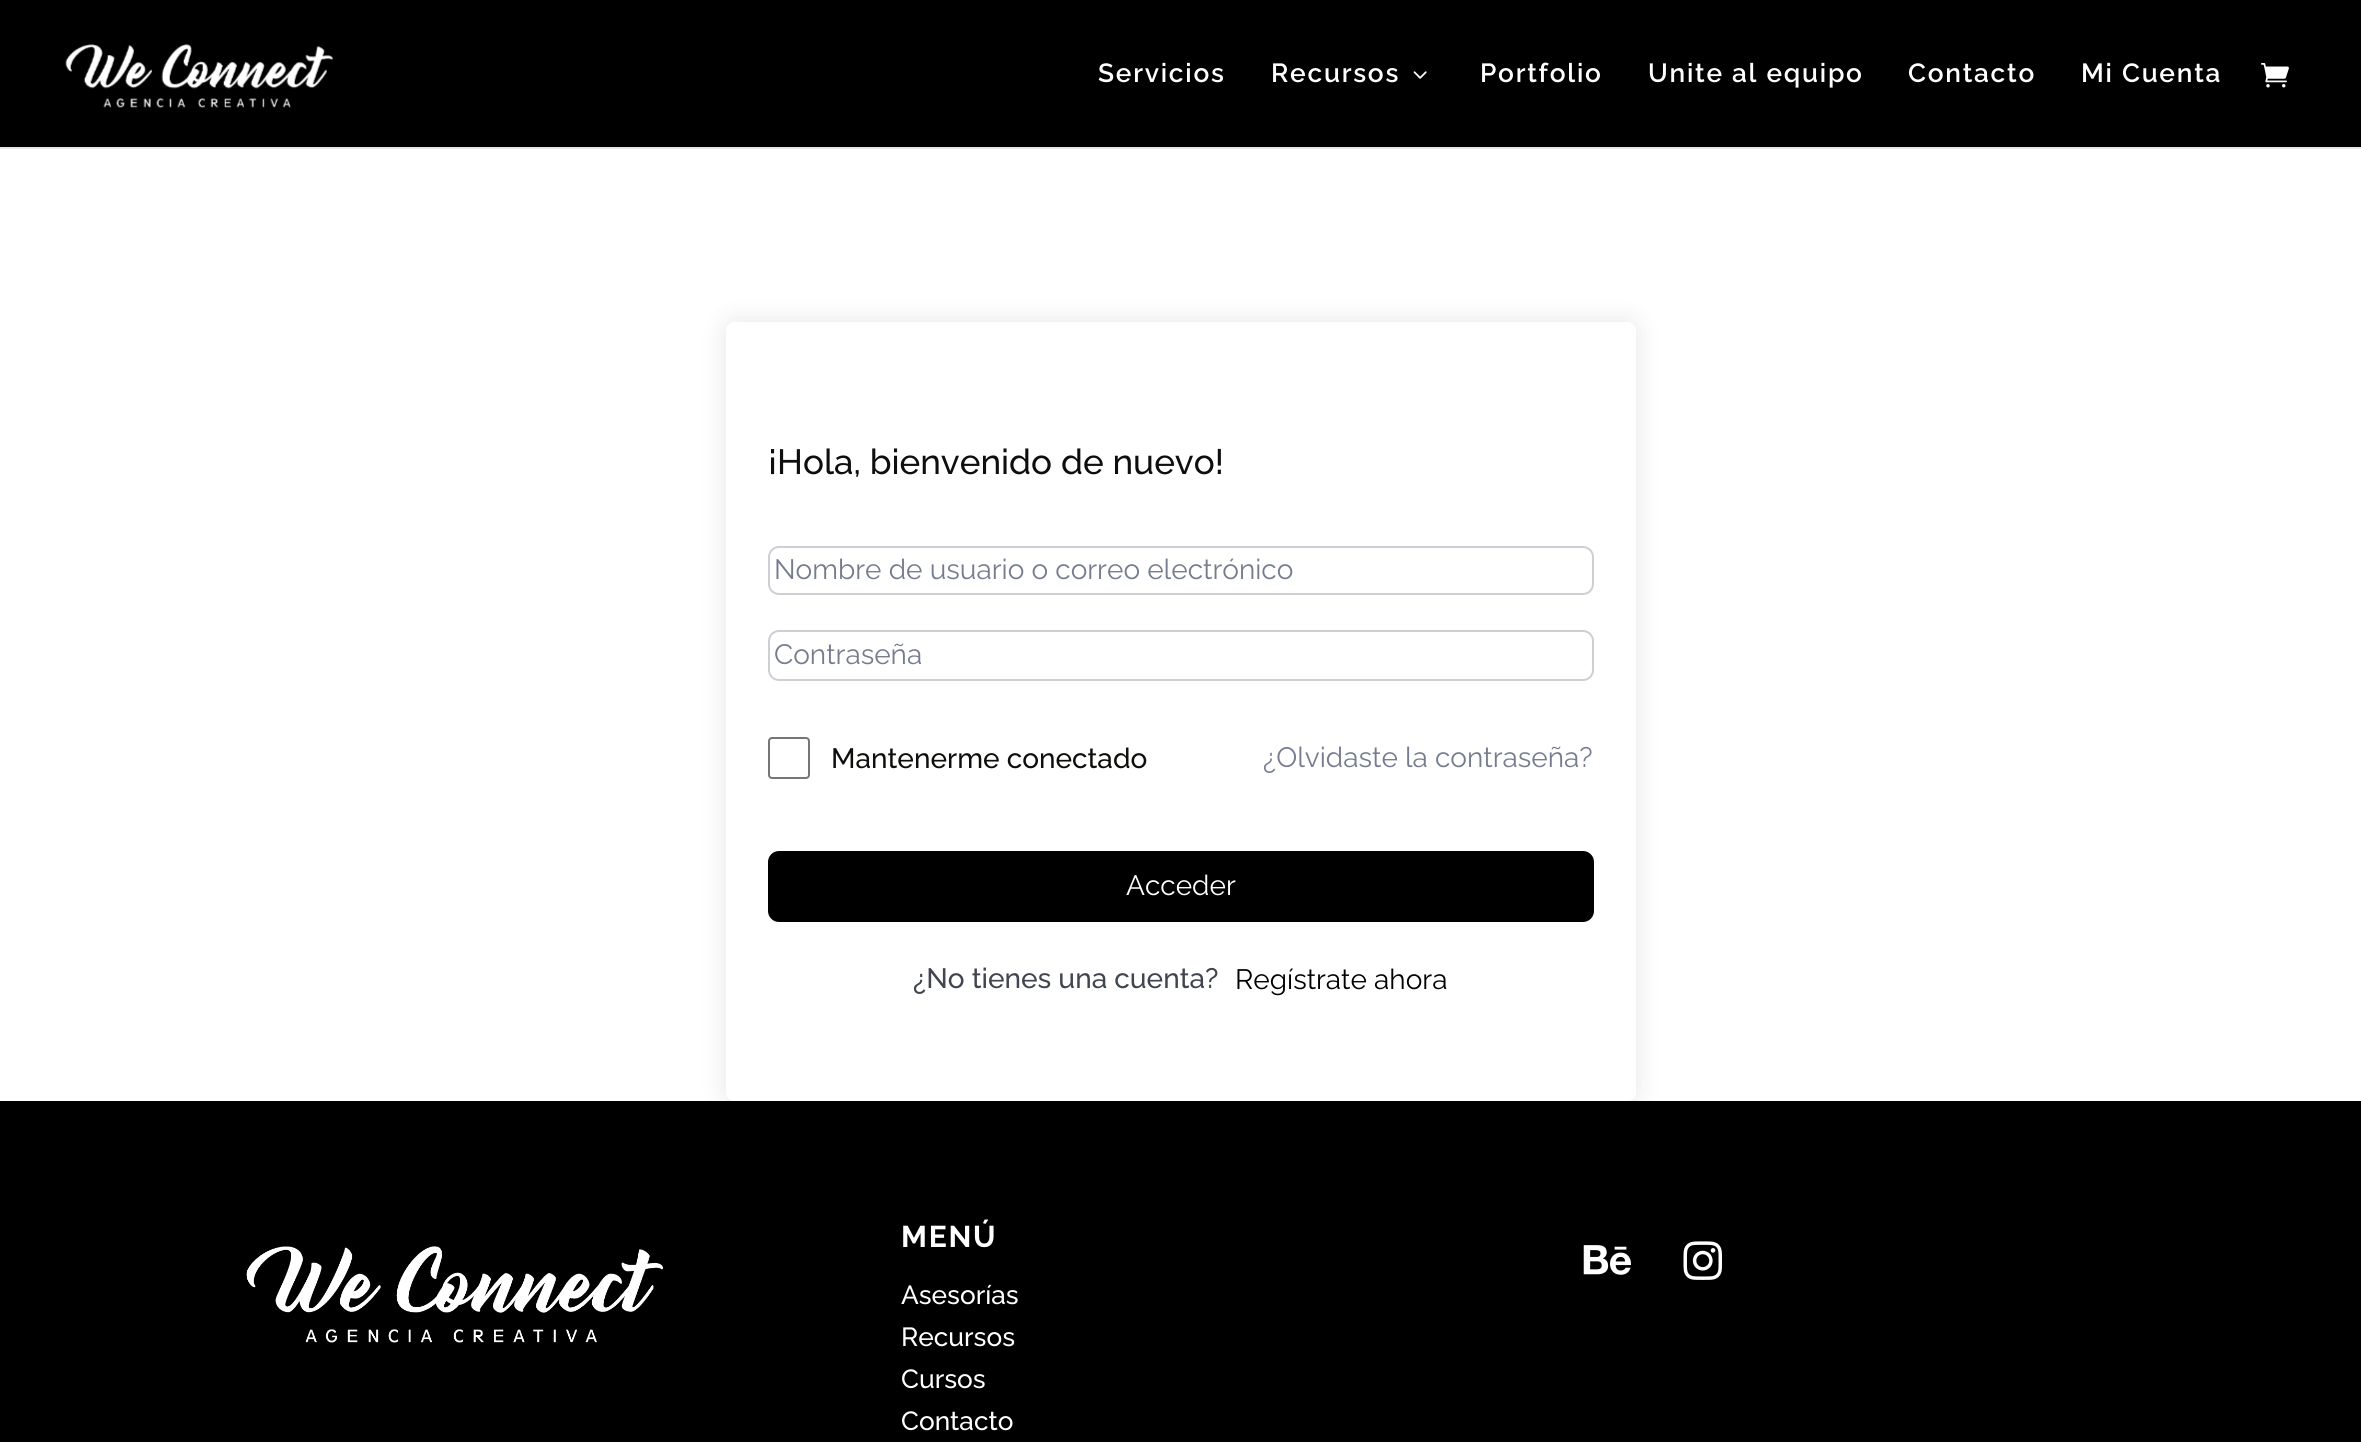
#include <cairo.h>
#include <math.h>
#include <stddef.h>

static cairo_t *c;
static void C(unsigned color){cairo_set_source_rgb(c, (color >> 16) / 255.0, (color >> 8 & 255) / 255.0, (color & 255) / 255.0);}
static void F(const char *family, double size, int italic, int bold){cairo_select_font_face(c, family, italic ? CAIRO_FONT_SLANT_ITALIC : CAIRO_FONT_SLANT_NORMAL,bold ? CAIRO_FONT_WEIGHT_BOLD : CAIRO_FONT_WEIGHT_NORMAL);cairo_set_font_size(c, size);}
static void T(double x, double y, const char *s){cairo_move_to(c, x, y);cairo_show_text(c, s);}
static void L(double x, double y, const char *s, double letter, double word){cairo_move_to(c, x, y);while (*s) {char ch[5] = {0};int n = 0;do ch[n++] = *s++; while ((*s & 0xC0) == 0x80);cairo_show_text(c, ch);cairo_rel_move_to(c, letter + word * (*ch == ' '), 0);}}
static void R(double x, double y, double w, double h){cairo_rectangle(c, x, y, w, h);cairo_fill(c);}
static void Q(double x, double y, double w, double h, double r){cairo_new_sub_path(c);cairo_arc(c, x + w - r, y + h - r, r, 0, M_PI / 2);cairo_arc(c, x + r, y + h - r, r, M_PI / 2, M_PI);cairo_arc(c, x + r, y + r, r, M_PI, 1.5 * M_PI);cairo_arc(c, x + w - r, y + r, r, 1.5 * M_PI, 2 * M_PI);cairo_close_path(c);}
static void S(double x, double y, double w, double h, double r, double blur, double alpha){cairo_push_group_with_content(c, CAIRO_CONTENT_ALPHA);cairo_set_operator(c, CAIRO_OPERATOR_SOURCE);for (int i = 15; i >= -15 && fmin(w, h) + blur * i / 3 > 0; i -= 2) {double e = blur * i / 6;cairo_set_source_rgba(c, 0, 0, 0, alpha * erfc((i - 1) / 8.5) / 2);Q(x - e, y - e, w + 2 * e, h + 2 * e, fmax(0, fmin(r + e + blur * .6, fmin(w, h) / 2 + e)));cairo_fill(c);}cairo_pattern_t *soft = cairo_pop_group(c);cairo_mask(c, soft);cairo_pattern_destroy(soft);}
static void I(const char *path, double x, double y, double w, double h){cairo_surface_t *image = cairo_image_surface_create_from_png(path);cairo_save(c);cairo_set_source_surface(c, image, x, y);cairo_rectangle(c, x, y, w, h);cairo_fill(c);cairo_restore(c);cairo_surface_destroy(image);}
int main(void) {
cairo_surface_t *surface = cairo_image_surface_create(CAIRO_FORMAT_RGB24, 2361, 1442);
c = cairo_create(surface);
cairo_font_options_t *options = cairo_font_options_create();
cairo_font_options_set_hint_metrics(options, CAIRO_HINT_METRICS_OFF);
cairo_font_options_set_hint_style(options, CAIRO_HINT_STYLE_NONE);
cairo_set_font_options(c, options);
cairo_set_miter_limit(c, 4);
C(0xffffff);
cairo_paint(c);
C(0xe6e6e6);
cairo_new_path(c);
cairo_move_to(c,0,147);
cairo_line_to(c,0,149);
cairo_line_to(c,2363,149);
cairo_line_to(c,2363,2);
cairo_line_to(c,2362,2);
cairo_line_to(c,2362,147);
cairo_close_path(c);
cairo_fill(c);
C(0x000000);
R(0,0,2361,147);
I("1.png",65,44,268,64);
F("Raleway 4 Thin",26.25,0,0);
C(0xffffff);
L(1098,82,"Servicios",1.75,0);
L(1271,82,"Recursos",1.75,0);
I("2.png",1413,71,14,8);
L(1480,82,"Portfolio",1.75,0);
L(1648,82,"Unite al equipo",1.75,0);
L(1908,82,"Contacto",1.75,0);
L(2081,82,"Mi Cuenta",1.75,0);
I("3.png",2261,63,28,25);
cairo_save(c);
cairo_set_fill_rule(c,CAIRO_FILL_RULE_EVEN_ODD);
cairo_new_path(c);
cairo_move_to(c,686,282);
cairo_line_to(c,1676,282);
cairo_line_to(c,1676,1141);
cairo_line_to(c,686,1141);
cairo_close_path(c);
cairo_move_to(c,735,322);
cairo_line_to(c,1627,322);
cairo_curve_to(c,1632,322,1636,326,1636,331);
cairo_line_to(c,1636,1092);
cairo_curve_to(c,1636,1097,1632,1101,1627,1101);
cairo_line_to(c,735,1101);
cairo_curve_to(c,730,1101,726,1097,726,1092);
cairo_line_to(c,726,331);
cairo_curve_to(c,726,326,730,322,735,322);
cairo_close_path(c);
cairo_clip(c);
C(0x000000);
S(726,322,910,779,9,13,.1);
cairo_restore(c);
F("Raleway Thin",35,0,0);
C(0x0e0e0c);
T(768,474,"¡Hola, bienvenido de nuevo!");
Q(769,547,824,47,10);
C(0xcdcfd5);
cairo_stroke(c);
F("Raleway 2 Thin",28,0,0);
C(0x757c8e);
T(774,579,"Nombre de usuario o correo electrónico");
Q(769,631,824,49,10);
C(0xcdcfd5);
cairo_stroke(c);
C(0x757c8e);
T(774,664,"Contraseña");
Q(769,738,40,40,3);
C(0x767676);
cairo_stroke(c);
F("Raleway Thin",28,0,0);
C(0x0e0e0c);
T(831,768,"Mantenerme conectado");
F("Raleway 2 Thin",28,0,0);
C(0x757c8e);
T(1263,767,"¿Olvidaste la contraseña?");
C(0x000000);
Q(769,852,824,69,10);
cairo_fill_preserve(c);
cairo_stroke(c);
C(0xffffff);
T(1126,895,"Acceder");
F("Raleway Thin",28,0,0);
C(0x41454f);
T(913,988,"¿No tienes una cuenta?");
F("Raleway 2 Thin",28,0,0);
C(0x000000);
T(1235,989,"Regístrate ahora");
R(0,1101,2361,341);
I("4.png",246,1246,417,97);
F("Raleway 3 Thin",30,0,0);
C(0xffffff);
L(901,1247,"MENÚ",1.75,0);
F("Raleway Thin",26.25,0,0);
T(901,1304,"Asesorías");
T(901,1346,"Recursos");
T(901,1388,"Cursos");
T(901,1430,"Contacto");
I("5.png",1583,1245,48,30);
I("6.png",1683,1241,39,39);
cairo_surface_write_to_png(surface, "o.png");
cairo_font_options_destroy(options);
cairo_destroy(c);
cairo_surface_destroy(surface);
return 0;
}
